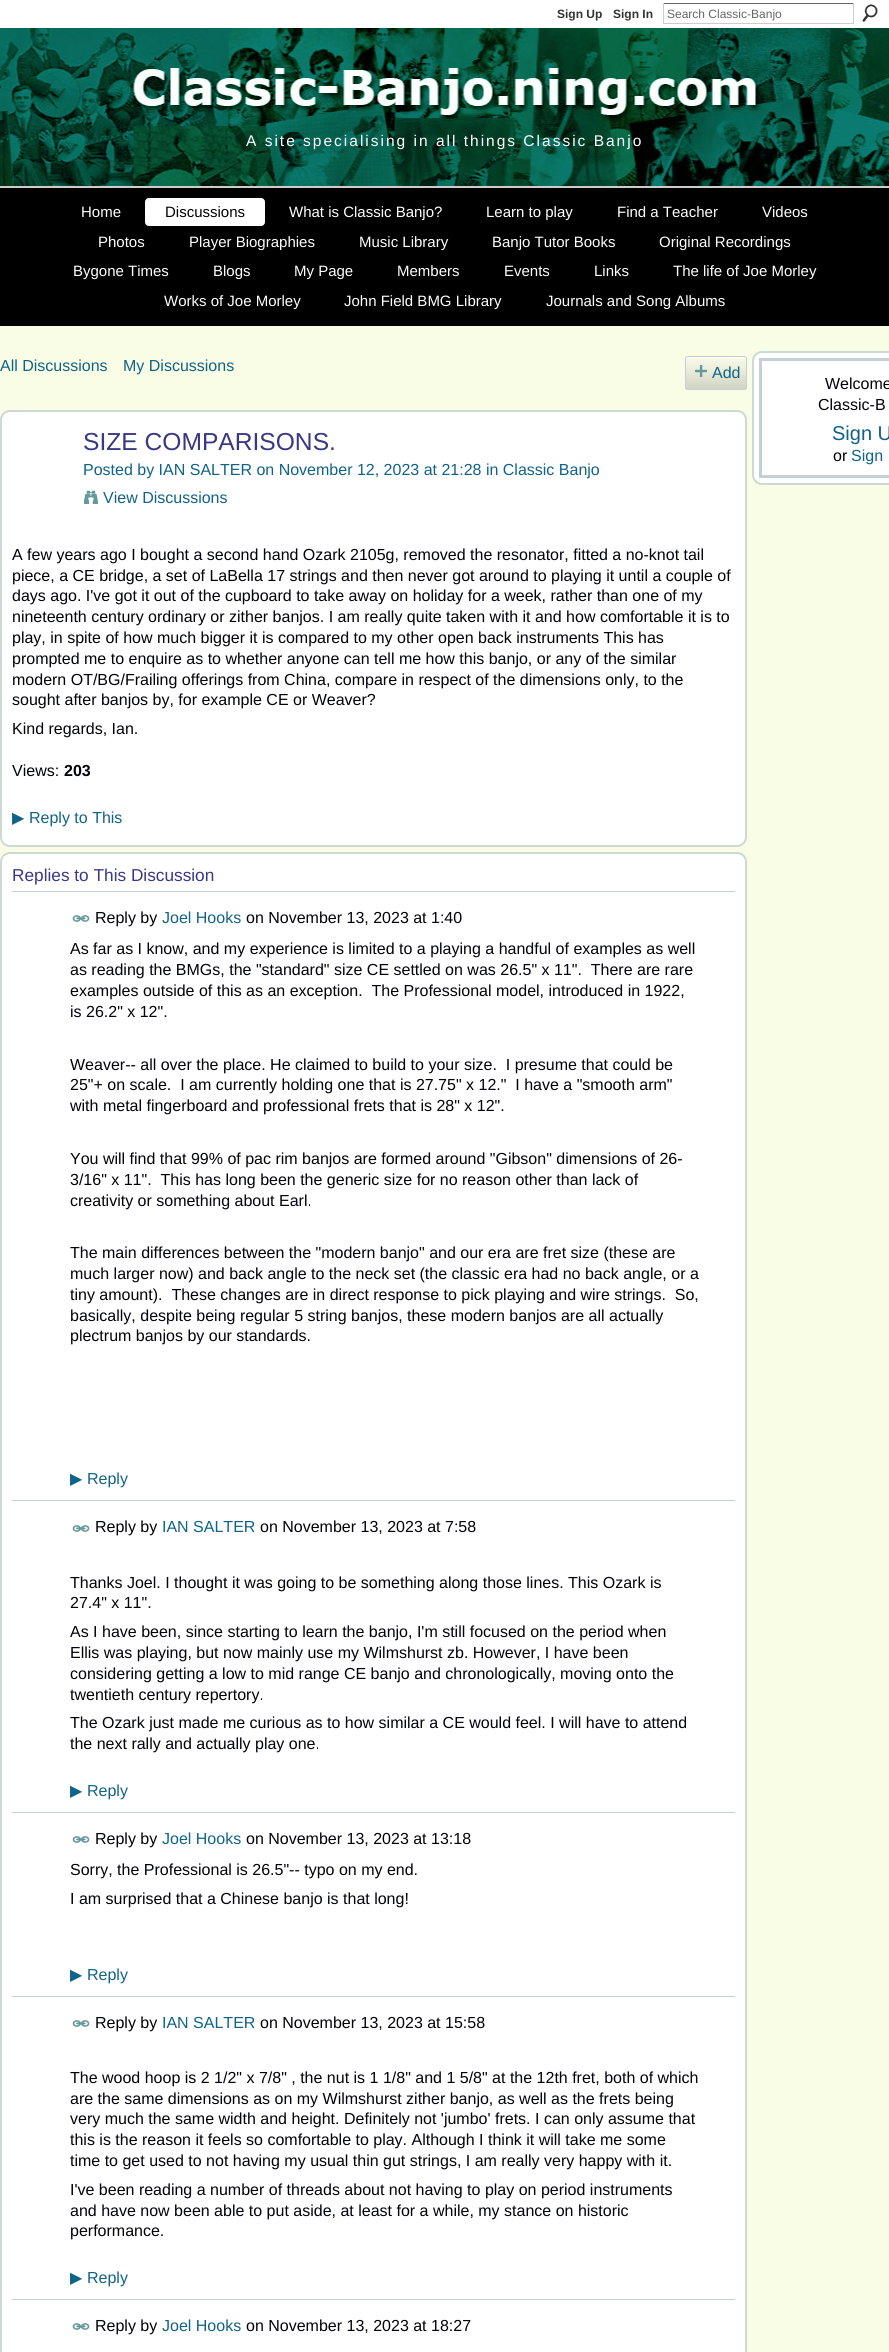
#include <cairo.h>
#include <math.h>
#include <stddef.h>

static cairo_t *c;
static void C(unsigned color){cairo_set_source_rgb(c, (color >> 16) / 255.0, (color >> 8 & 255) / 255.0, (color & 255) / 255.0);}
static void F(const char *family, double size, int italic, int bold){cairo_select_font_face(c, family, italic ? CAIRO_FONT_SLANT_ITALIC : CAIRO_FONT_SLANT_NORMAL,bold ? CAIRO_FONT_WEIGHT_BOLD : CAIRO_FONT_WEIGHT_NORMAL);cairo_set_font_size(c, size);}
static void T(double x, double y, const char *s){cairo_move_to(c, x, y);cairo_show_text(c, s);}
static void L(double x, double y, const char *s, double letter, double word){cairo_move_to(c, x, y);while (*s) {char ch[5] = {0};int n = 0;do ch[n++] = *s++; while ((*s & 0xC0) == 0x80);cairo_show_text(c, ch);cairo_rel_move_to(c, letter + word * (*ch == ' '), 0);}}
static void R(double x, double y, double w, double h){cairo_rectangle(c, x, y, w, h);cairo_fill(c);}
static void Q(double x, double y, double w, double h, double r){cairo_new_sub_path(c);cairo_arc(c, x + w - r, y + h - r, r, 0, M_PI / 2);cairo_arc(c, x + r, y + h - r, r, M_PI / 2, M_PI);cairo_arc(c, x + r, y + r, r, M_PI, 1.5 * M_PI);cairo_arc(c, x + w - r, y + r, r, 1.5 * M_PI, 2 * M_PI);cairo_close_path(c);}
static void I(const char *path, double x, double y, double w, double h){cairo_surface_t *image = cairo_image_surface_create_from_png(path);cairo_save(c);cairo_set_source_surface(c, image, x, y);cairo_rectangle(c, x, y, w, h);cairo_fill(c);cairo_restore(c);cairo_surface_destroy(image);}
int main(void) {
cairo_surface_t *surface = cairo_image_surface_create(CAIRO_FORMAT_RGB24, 889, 2352);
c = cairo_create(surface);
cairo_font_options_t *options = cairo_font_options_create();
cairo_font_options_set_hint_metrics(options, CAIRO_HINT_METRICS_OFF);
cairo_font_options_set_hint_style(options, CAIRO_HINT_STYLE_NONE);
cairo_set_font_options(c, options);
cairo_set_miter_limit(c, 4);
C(0xffffff);
cairo_paint(c);
F("Liberation Sans",12,0,1);
C(0x333333);
T(557,18,"Sign Up");
T(613,18,"Sign In");
C(0x666666);
R(663,3,191,1);
C(0xcccccc);
R(853,3,1,21);
R(663,23,191,1);
R(663,3,1,21);
F("Liberation Sans",12,0,0);
C(0x666666);
T(667,18,"Search Classic-Banjo");
I("1.png",862,4,16,18);
I("2.png",0,28,889,158);
F("Liberation Sans",15.5,0,0);
C(0xffffff);
L(246,146,"A site specialising in all things Classic Banjo",2,0);
C(0x000000);
R(0,188,889,138);
C(0xcccccc);
R(0,186,889,2);
F("Liberation Sans",15,0,0);
C(0xffffff);
T(81,217,"Home");
Q(145,198,120,28,4);
cairo_fill(c);
C(0x000000);
T(165,217,"Discussions");
C(0xffffff);
T(289,217,"What is Classic Banjo?");
T(486,217,"Learn to play");
T(617,217,"Find a Teacher");
T(762,217,"Videos");
T(98,247,"Photos");
T(189,247,"Player Biographies");
T(359,247,"Music Library");
T(492,247,"Banjo Tutor Books");
T(659,247,"Original Recordings");
T(73,276,"Bygone Times");
T(213,276,"Blogs");
T(294,276,"My Page");
T(397,276,"Members");
T(504,276,"Events");
T(594,276,"Links");
T(673,276,"The life of Joe Morley");
T(164,306,"Works of Joe Morley");
T(344,306,"John Field BMG Library");
T(546,306,"Journals and Song Albums");
C(0xf9fde6);
R(0,326,889,2026);
F("Liberation Sans",16,0,0);
C(0x0f6387);
T(0,371,"All Discussions");
T(123,371,"My Discussions");
I("3.png",685,359,62,31);
Q(685.5,356.5,61,33,2.5);
C(0xc4d0d5);
cairo_set_line_width(c,1);
cairo_stroke(c);
I("4.png",695,365,12,12);
C(0x0f6387);
T(712,378,"Add");
C(0xffffff);
Q(1,411,745,435,9);
cairo_fill_preserve(c);
C(0xcdd9d3);
cairo_set_line_width(c,2);
cairo_stroke(c);
F("Liberation Sans",24.6,0,0);
C(0x383885);
T(83,450,"SIZE COMPARISONS.");
F("Liberation Sans",16,0,0);
C(0x0f6387);
T(83,475,"Posted by IAN SALTER on November 12, 2023 at 21:28 in Classic Banjo");
I("5.png",84,490,14,14);
T(103,503,"View Discussions");
C(0x01010a);
T(12,560,"A few years ago I bought a second hand Ozark 2105g, removed the resonator, fitted a no-knot tail");
T(12,581,"piece, a CE bridge, a set of LaBella 17 strings and then never got around to playing it until a couple of");
T(12,601,"days ago. I've got it out of the cupboard to take away on holiday for a week, rather than one of my");
T(12,622,"nineteenth century ordinary or zither banjos. I am really quite taken with it and how comfortable it is to");
T(12,643,"play, in spite of how much bigger it is compared to my other open back instruments This has");
T(12,664,"prompted me to enquire as to whether anyone can tell me how this banjo, or any of the similar");
T(12,685,"modern OT/BG/Frailing offerings from China, compare in respect of the dimensions only, to the");
T(12,705,"sought after banjos by, for example CE or Weaver?");
T(12,734,"Kind regards, Ian.");
T(12,776,"Views:");
F("Liberation Sans",16,0,1);
T(64,776,"203");
F("DejaVu Sans",16,0,0);
C(0x0f6387);
T(12,823,"▶");
F("Liberation Sans",16,0,0);
T(29,823,"Reply to This");
C(0xffffff);
Q(1,853,745,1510,9);
cairo_fill_preserve(c);
C(0xcdd9d3);
cairo_stroke(c);
F("Liberation Sans",17.25,0,0);
C(0x383885);
T(12,881,"Replies to This Discussion");
C(0xc4d0d5);
R(12,891,723,1);
I("6.png",72,915,18,7);
F("Liberation Sans",16,0,0);
C(0x01010a);
T(95,923,"Reply by");
C(0x0f6387);
T(162,923,"Joel Hooks");
C(0x01010a);
T(246,923,"on November 13, 2023 at 1:40");
T(70,954,"As far as I know, and my experience is limited to a playing a handful of examples as well");
T(70,975,"as reading the BMGs, the \"standard\" size CE settled on was 26.5\" x 11\".  There are rare");
T(70,996,"examples outside of this as an exception.  The Professional model, introduced in 1922,");
T(70,1017,"is 26.2\" x 12\".");
T(70,1070,"Weaver-- all over the place. He claimed to build to your size.  I presume that could be");
T(70,1090,"25\"+ on scale.  I am currently holding one that is 27.75\" x 12.\"  I have a \"smooth arm\"");
T(70,1111,"with metal fingerboard and professional frets that is 28\" x 12\".");
T(70,1164,"You will find that 99% of pac rim banjos are formed around \"Gibson\" dimensions of 26-");
T(70,1185,"3/16\" x 11\".  This has long been the generic size for no reason other than lack of");
T(70,1206,"creativity or something about Earl.");
T(70,1258,"The main differences between the \"modern banjo\" and our era are fret size (these are");
T(70,1279,"much larger now) and back angle to the neck set (the classic era had no back angle, or a");
T(70,1300,"tiny amount).  These changes are in direct response to pick playing and wire strings.  So,");
T(70,1321,"basically, despite being regular 5 string banjos, these modern banjos are all actually");
T(70,1341,"plectrum banjos by our standards.");
F("DejaVu Sans",16,0,0);
C(0x0f6387);
T(70,1484,"▶");
F("Liberation Sans",16,0,0);
T(87,1484,"Reply");
C(0xc4d0d5);
R(12,1500,723,1);
I("6.png",72,1525,18,7);
C(0x01010a);
T(95,1532,"Reply by");
C(0x0f6387);
T(162,1532,"IAN SALTER");
C(0x01010a);
T(260,1532,"on November 13, 2023 at 7:58");
T(70,1588,"Thanks Joel. I thought it was going to be something along those lines. This Ozark is");
T(70,1608,"27.4\" x 11\".");
T(70,1637,"As I have been, since starting to learn the banjo, I'm still focused on the period when");
T(70,1658,"Ellis was playing, but now mainly use my Wilmshurst zb. However, I have been");
T(70,1679,"considering getting a low to mid range CE banjo and chronologically, moving onto the");
T(70,1700,"twentieth century repertory.");
T(70,1728,"The Ozark just made me curious as to how similar a CE would feel. I will have to attend");
T(70,1749,"the next rally and actually play one.");
F("DejaVu Sans",16,0,0);
C(0x0f6387);
T(70,1796,"▶");
F("Liberation Sans",16,0,0);
T(87,1796,"Reply");
C(0xc4d0d5);
R(12,1812,723,1);
I("6.png",72,1836,18,7);
C(0x01010a);
T(95,1844,"Reply by");
C(0x0f6387);
T(162,1844,"Joel Hooks");
C(0x01010a);
T(246,1844,"on November 13, 2023 at 13:18");
T(70,1875,"Sorry, the Professional is 26.5\"-- typo on my end.");
T(70,1904,"I am surprised that a Chinese banjo is that long!");
F("DejaVu Sans",16,0,0);
C(0x0f6387);
T(70,1980,"▶");
F("Liberation Sans",16,0,0);
T(87,1980,"Reply");
C(0xc4d0d5);
R(12,1996,723,1);
I("6.png",72,2020,18,7);
C(0x01010a);
T(95,2028,"Reply by");
C(0x0f6387);
T(162,2028,"IAN SALTER");
C(0x01010a);
T(260,2028,"on November 13, 2023 at 15:58");
T(70,2083,"The wood hoop is 2 1/2\" x 7/8\" , the nut is 1 1/8\" and 1 5/8\" at the 12th fret, both of which");
T(70,2104,"are the same dimensions as on my Wilmshurst zither banjo, as well as the frets being");
T(70,2124,"very much the same width and height. Definitely not 'jumbo' frets. I can only assume that");
T(70,2145,"this is the reason it feels so comfortable to play. Although I think it will take me some");
T(70,2166,"time to get used to not having my usual thin gut strings, I am really very happy with it.");
T(70,2195,"I've been reading a number of threads about not having to play on period instruments");
T(70,2216,"and have now been able to put aside, at least for a while, my stance on historic");
T(70,2236,"performance.");
F("DejaVu Sans",16,0,0);
C(0x0f6387);
T(70,2283,"▶");
F("Liberation Sans",16,0,0);
T(87,2283,"Reply");
C(0xc4d0d5);
R(12,2299,723,1);
I("6.png",72,2323,18,7);
C(0x01010a);
T(95,2331,"Reply by");
C(0x0f6387);
T(162,2331,"Joel Hooks");
C(0x01010a);
T(246,2331,"on November 13, 2023 at 18:27");
C(0xffffff);
Q(753,352,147,132,9);
cairo_fill_preserve(c);
C(0xcdd9d3);
cairo_stroke(c);
cairo_rectangle(c,760.5,359.5,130,117);
C(0xc4d0d5);
cairo_set_line_width(c,3);
cairo_stroke(c);
C(0x01010a);
T(825,389,"Welcome");
T(818,410,"Classic-B");
F("Liberation Sans",20,0,0);
C(0x0f6387);
T(832,440,"Sign U");
F("Liberation Sans",16,0,0);
C(0x01010a);
T(833,461,"or");
C(0x0f6387);
T(851,461,"Sign");
cairo_surface_write_to_png(surface, "o.png");
cairo_font_options_destroy(options);
cairo_destroy(c);
cairo_surface_destroy(surface);
return 0;
}
